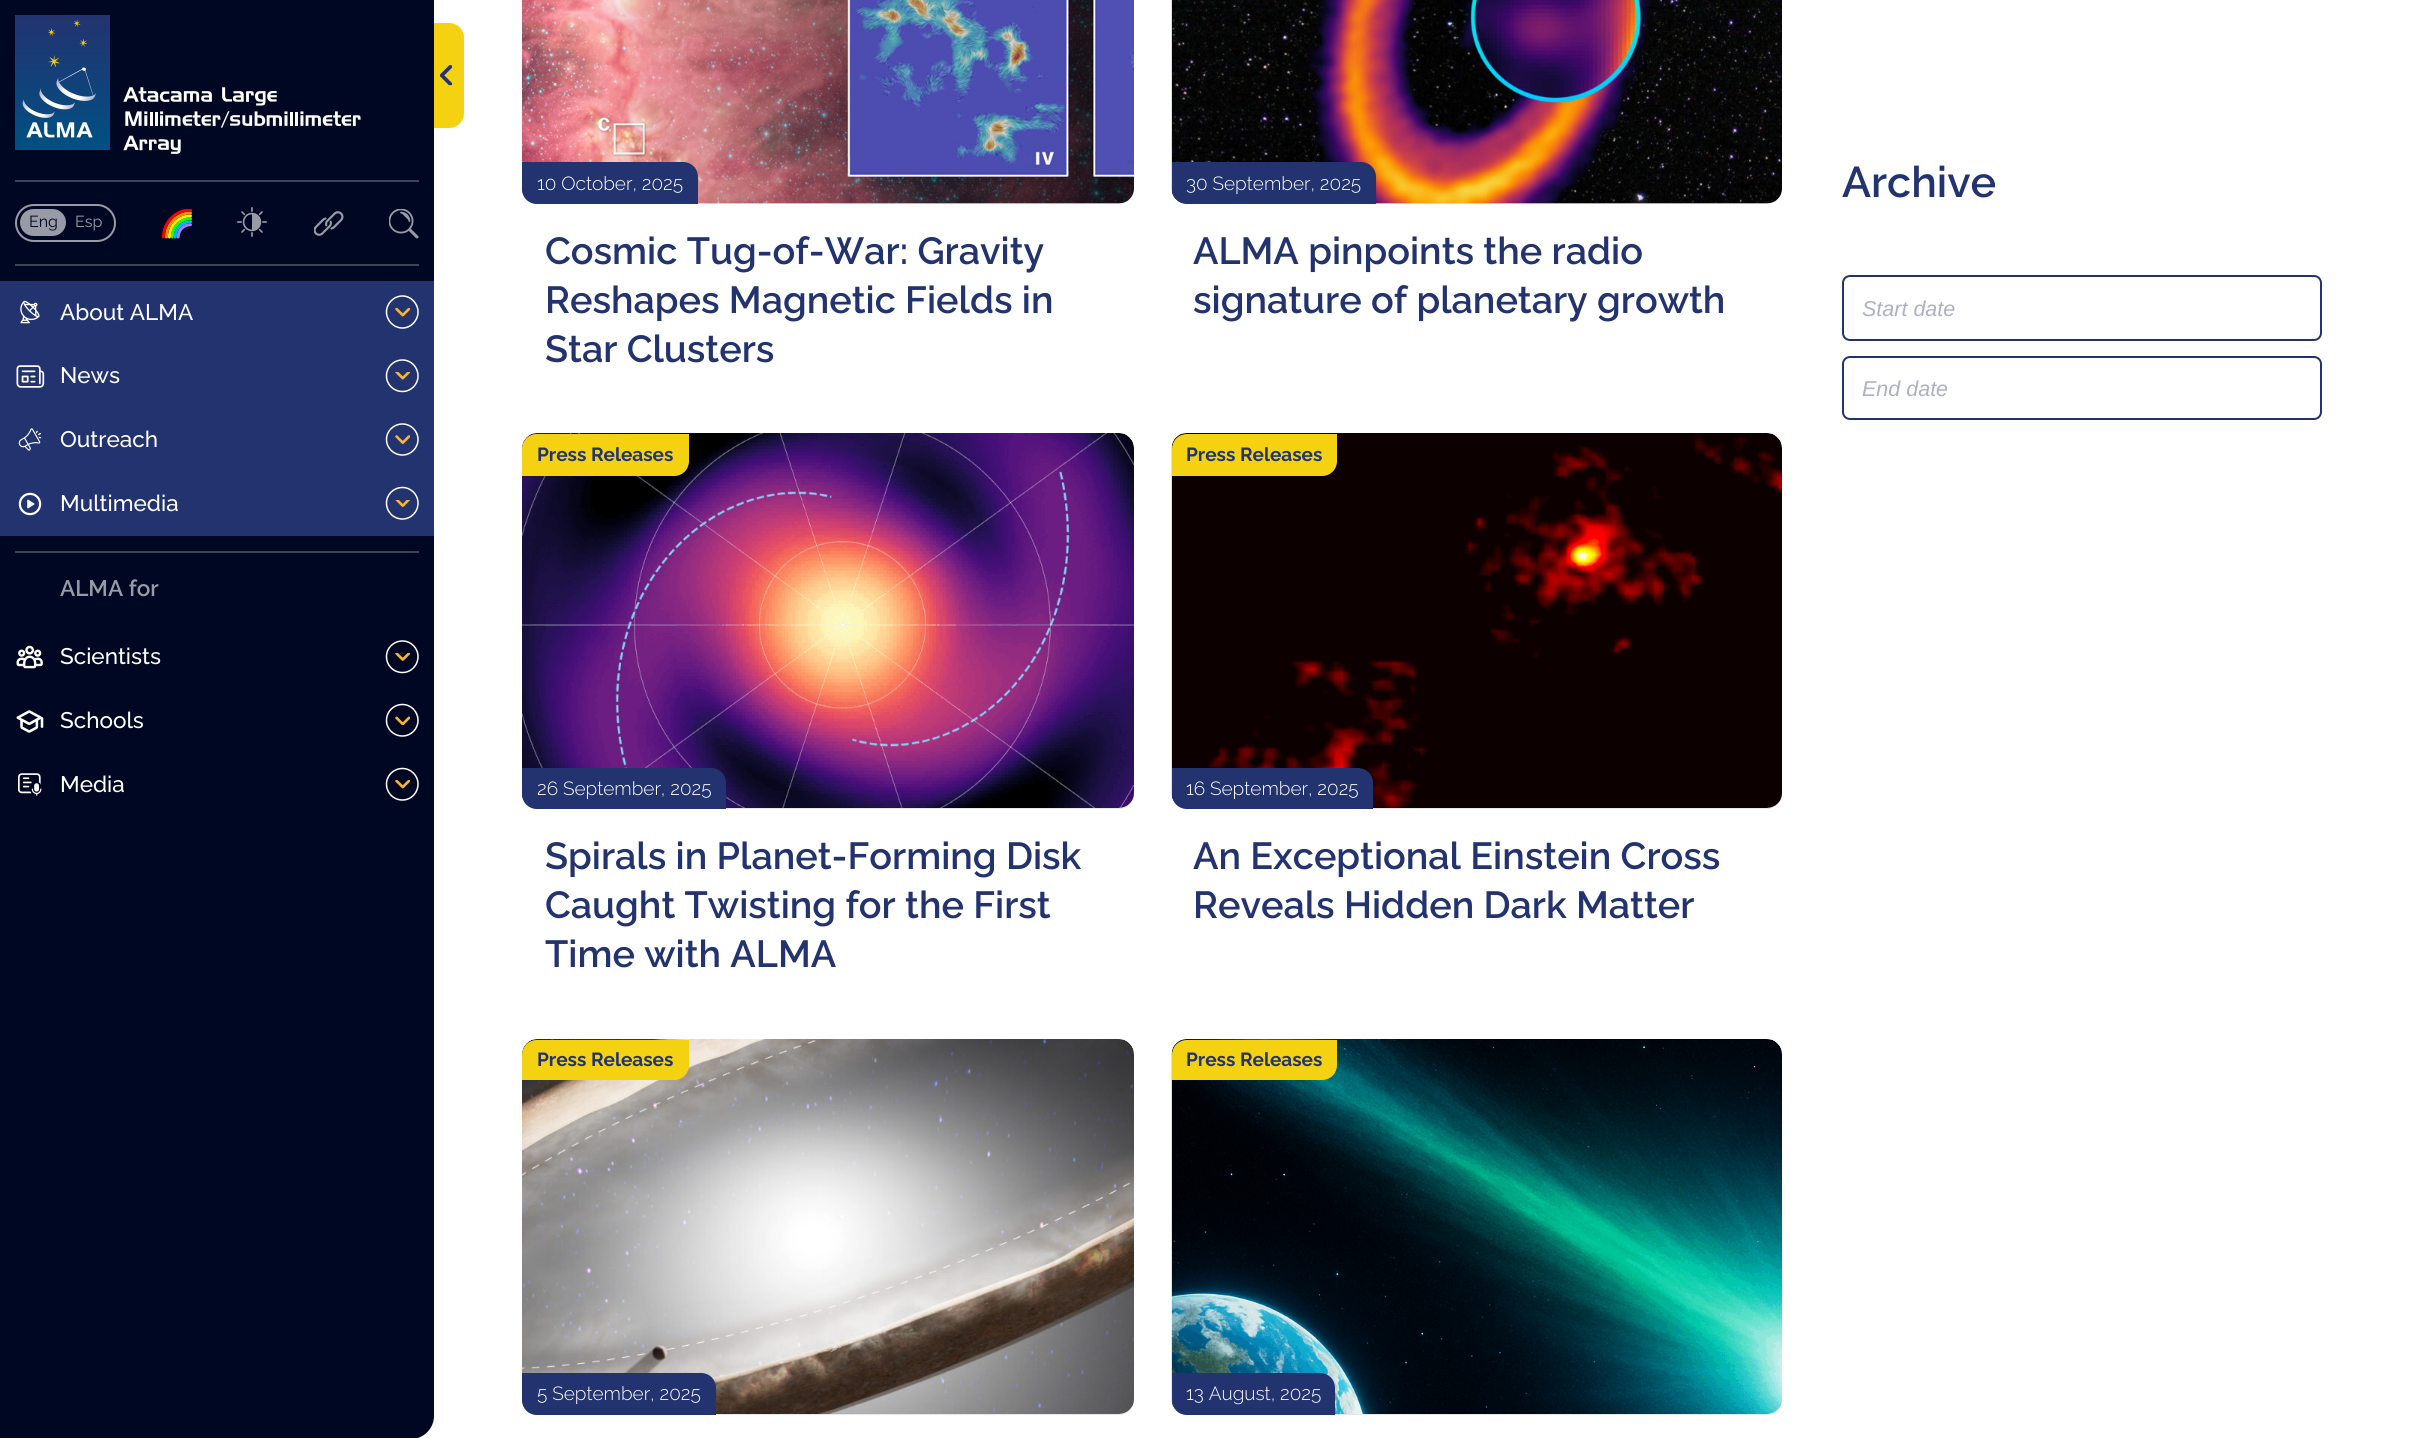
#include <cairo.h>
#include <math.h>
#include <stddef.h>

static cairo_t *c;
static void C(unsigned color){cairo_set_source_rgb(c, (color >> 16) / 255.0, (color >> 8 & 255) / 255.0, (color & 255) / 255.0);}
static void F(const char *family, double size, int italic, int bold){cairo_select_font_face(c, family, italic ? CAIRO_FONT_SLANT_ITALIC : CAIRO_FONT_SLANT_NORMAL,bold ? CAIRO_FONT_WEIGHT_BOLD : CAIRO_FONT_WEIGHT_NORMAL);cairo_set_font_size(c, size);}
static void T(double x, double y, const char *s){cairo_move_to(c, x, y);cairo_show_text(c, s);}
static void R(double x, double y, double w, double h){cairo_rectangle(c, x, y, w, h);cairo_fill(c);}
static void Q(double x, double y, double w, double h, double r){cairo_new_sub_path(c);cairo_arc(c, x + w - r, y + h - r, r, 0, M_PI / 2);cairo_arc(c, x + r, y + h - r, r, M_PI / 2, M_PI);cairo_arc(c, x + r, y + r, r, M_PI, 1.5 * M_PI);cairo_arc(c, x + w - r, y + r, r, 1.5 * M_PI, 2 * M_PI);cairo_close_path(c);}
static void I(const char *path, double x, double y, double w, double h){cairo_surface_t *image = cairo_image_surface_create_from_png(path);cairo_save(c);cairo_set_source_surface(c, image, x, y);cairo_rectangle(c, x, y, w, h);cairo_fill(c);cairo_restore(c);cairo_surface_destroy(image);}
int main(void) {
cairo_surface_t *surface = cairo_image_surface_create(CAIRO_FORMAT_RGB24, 2410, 1438);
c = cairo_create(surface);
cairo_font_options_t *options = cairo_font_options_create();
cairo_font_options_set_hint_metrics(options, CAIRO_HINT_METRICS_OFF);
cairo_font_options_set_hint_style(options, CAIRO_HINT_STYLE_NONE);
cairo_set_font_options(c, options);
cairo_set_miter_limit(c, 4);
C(0xffffff);
cairo_paint(c);
C(0xf4d111);
cairo_new_path(c);
cairo_move_to(c,434,23);
cairo_line_to(c,449,23);
cairo_curve_to(c,457.5,23,464,29.5,464,38);
cairo_line_to(c,464,113);
cairo_curve_to(c,464,121.5,457.5,128,449,128);
cairo_line_to(c,434,128);
cairo_close_path(c);
cairo_fill(c);
I("1.png",440,65,13,21);
C(0x000723);
cairo_new_path(c);
cairo_move_to(c,0,0);
cairo_line_to(c,434,0);
cairo_line_to(c,434,1416);
cairo_curve_to(c,434,1428.5,423.5,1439,411,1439);
cairo_line_to(c,0,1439);
cairo_close_path(c);
cairo_fill(c);
I("2.png",15,15,346,139);
C(0x3e4356);
R(15,180,404,2);
R(15,264,404,2);
Q(16,205,99,36,18);
C(0x989ba6);
cairo_stroke(c);
Q(20,209,46,27,13.5);
cairo_fill(c);
F("Raleway",16,0,0);
C(0x000723);
T(29,227,"Eng");
C(0x989ba6);
T(75,227,"Esp");
I("3.png",162,209,30,30);
I("4.png",237,207,30,30);
I("5.png",314,211,30,25);
I("6.png",389,209,30,30);
C(0x223370);
R(0,281,434,255);
I("7.png",20,300,20,24);
F("Raleway Medium",22.5,0,0);
C(0xffffff);
T(60,320,"About ALMA");
I("8.png",395,308,15,9);
cairo_new_path(c);
cairo_move_to(c,402.5,328);
cairo_curve_to(c,393.5,328,386.5,320.5,386.5,312);
cairo_curve_to(c,386.5,303.5,393.5,296,402.5,296);
cairo_curve_to(c,411,296,418,303.5,418,312);
cairo_curve_to(c,418,320.5,411,328,402.5,328);
cairo_close_path(c);
cairo_set_line_width(c,1.5);
cairo_stroke(c);
I("9.png",16,365,29,23);
T(60,383,"News");
I("10.png",395,372,15,8);
cairo_new_path(c);
cairo_move_to(c,402.5,391.5);
cairo_curve_to(c,393.5,391.5,386.5,384.5,386.5,376);
cairo_curve_to(c,386.5,367,393.5,360,402.5,360);
cairo_curve_to(c,411,360,418,367,418,376);
cairo_curve_to(c,418,384.5,411,391.5,402.5,391.5);
cairo_close_path(c);
cairo_stroke(c);
I("11.png",18,428,24,23);
T(60,447,"Outreach");
I("12.png",395,435,15,9);
cairo_new_path(c);
cairo_move_to(c,402.5,455);
cairo_curve_to(c,393.5,455,386.5,448,386.5,439.5);
cairo_curve_to(c,386.5,431,393.5,424,402.5,424);
cairo_curve_to(c,411,424,418,431,418,439.5);
cairo_curve_to(c,418,448,411,455,402.5,455);
cairo_close_path(c);
cairo_stroke(c);
I("13.png",18,492,24,24);
T(60,511,"Multimedia");
I("14.png",395,500,15,7);
cairo_new_path(c);
cairo_move_to(c,402.5,519);
cairo_curve_to(c,393.5,519,386.5,512,386.5,503);
cairo_curve_to(c,386.5,494.5,393.5,487.5,402.5,487.5);
cairo_curve_to(c,411,487.5,418,494.5,418,503);
cairo_curve_to(c,418,512,411,519,402.5,519);
cairo_close_path(c);
cairo_stroke(c);
C(0x3e4356);
R(15,551,404,2);
F("Raleway SemiBold",22.5,0,0);
C(0x989ba6);
T(60,596,"ALMA for");
I("15.png",16,645,27,24);
F("Raleway Medium",22.5,0,0);
C(0xffffff);
T(60,664,"Scientists");
I("16.png",395,653,15,8);
cairo_new_path(c);
cairo_move_to(c,402.5,672.5);
cairo_curve_to(c,393.5,672.5,386.5,665.5,386.5,656.5);
cairo_curve_to(c,386.5,648,393.5,641,402.5,641);
cairo_curve_to(c,411,641,418,648,418,656.5);
cairo_curve_to(c,418,665.5,411,672.5,402.5,672.5);
cairo_close_path(c);
cairo_stroke(c);
I("17.png",16,710,28,23);
T(60,728,"Schools");
I("18.png",395,716,15,9);
cairo_new_path(c);
cairo_move_to(c,402.5,736);
cairo_curve_to(c,393.5,736,386.5,729,386.5,720.5);
cairo_curve_to(c,386.5,711.5,393.5,704.5,402.5,704.5);
cairo_curve_to(c,411,704.5,418,711.5,418,720.5);
cairo_curve_to(c,418,729,411,736,402.5,736);
cairo_close_path(c);
cairo_stroke(c);
I("19.png",18,773,24,23);
T(60,792,"Media");
I("20.png",395,780,15,9);
cairo_new_path(c);
cairo_move_to(c,402.5,800);
cairo_curve_to(c,393.5,800,386.5,793,386.5,784);
cairo_curve_to(c,386.5,775.5,393.5,768.5,402.5,768.5);
cairo_curve_to(c,411,768.5,418,775.5,418,784);
cairo_curve_to(c,418,793,411,800,402.5,800);
cairo_close_path(c);
cairo_stroke(c);
C(0xe6e6e6);
Q(522,-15,612,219,15);
cairo_fill(c);
I("21.png",522,0,612,204);
C(0x223370);
cairo_new_path(c);
cairo_move_to(c,522,162);
cairo_line_to(c,683,162);
cairo_curve_to(c,691.5,162,698,168.5,698,177);
cairo_line_to(c,698,204);
cairo_line_to(c,537,204);
cairo_curve_to(c,528.5,204,522,197.5,522,189);
cairo_close_path(c);
cairo_fill(c);
F("Raleway Light",19,0,0);
C(0xffffff);
T(537,190,"10 October, 2025");
F("Raleway SemiBold",37.75,0,0);
C(0x223370);
T(545,264,"Cosmic Tug-of-War: Gravity");
T(545,313,"Reshapes Magnetic Fields in");
T(545,362,"Star Clusters");
C(0xe6e6e6);
Q(1172,-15,610,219,15);
cairo_fill(c);
I("22.png",1171,0,611,204);
C(0x223370);
cairo_new_path(c);
cairo_move_to(c,1172,162);
cairo_line_to(c,1361,162);
cairo_curve_to(c,1369.5,162,1376,168.5,1376,177);
cairo_line_to(c,1376,204);
cairo_line_to(c,1187,204);
cairo_curve_to(c,1178.5,204,1172,197.5,1172,189);
cairo_close_path(c);
cairo_fill(c);
F("Raleway Light",19,0,0);
C(0xffffff);
T(1186,190,"30 September, 2025");
F("Raleway SemiBold",37.75,0,0);
C(0x223370);
T(1193,264,"ALMA pinpoints the radio");
T(1193,313,"signature of planetary growth");
C(0xe6e6e6);
Q(522,434,612,375,15);
cairo_fill(c);
I("23.png",522,433,612,375);
C(0xf4d111);
cairo_new_path(c);
cairo_move_to(c,537,434);
cairo_line_to(c,689,434);
cairo_line_to(c,689,461);
cairo_curve_to(c,689,469.5,682.5,476,674,476);
cairo_line_to(c,522,476);
cairo_line_to(c,522,449);
cairo_curve_to(c,522,440.5,528.5,434,537,434);
cairo_close_path(c);
cairo_fill(c);
F("Raleway",19,0,1);
C(0x223370);
T(537,461,"Press Releases");
cairo_new_path(c);
cairo_move_to(c,522,768);
cairo_line_to(c,711,768);
cairo_curve_to(c,719.5,768,726,774.5,726,783);
cairo_line_to(c,726,809);
cairo_line_to(c,537,809);
cairo_curve_to(c,528.5,809,522,802.5,522,794);
cairo_close_path(c);
cairo_fill(c);
F("Raleway Light",19,0,0);
C(0xffffff);
T(537,795,"26 September, 2025");
F("Raleway SemiBold",37.75,0,0);
C(0x223370);
T(545,869,"Spirals in Planet-Forming Disk");
T(545,918,"Caught Twisting for the First");
T(545,967,"Time with ALMA");
C(0xe6e6e6);
Q(1172,434,610,375,15);
cairo_fill(c);
I("24.png",1171,433,611,375);
C(0xf4d111);
cairo_new_path(c);
cairo_move_to(c,1187,434);
cairo_line_to(c,1337,434);
cairo_line_to(c,1337,461);
cairo_curve_to(c,1337,469.5,1330.5,476,1322,476);
cairo_line_to(c,1172,476);
cairo_line_to(c,1172,449);
cairo_curve_to(c,1172,440.5,1178.5,434,1187,434);
cairo_close_path(c);
cairo_fill(c);
F("Raleway",19,0,1);
C(0x223370);
T(1186,461,"Press Releases");
cairo_new_path(c);
cairo_move_to(c,1172,768);
cairo_line_to(c,1358,768);
cairo_curve_to(c,1366.5,768,1373,774.5,1373,783);
cairo_line_to(c,1373,809);
cairo_line_to(c,1187,809);
cairo_curve_to(c,1178.5,809,1172,802.5,1172,794);
cairo_close_path(c);
cairo_fill(c);
F("Raleway Light",19,0,0);
C(0xffffff);
T(1186,795,"16 September, 2025");
F("Raleway SemiBold",37.75,0,0);
C(0x223370);
T(1193,869,"An Exceptional Einstein Cross");
T(1193,918,"Reveals Hidden Dark Matter");
C(0xe6e6e6);
Q(522,1040,612,375,15);
cairo_fill(c);
I("25.png",522,1039,612,375);
C(0xf4d111);
cairo_new_path(c);
cairo_move_to(c,537,1040);
cairo_line_to(c,689,1040);
cairo_line_to(c,689,1065);
cairo_curve_to(c,689,1073.5,682.5,1080,674,1080);
cairo_line_to(c,522,1080);
cairo_line_to(c,522,1055);
cairo_curve_to(c,522,1046.5,528.5,1040,537,1040);
cairo_close_path(c);
cairo_fill(c);
F("Raleway",19,0,1);
C(0x223370);
T(537,1066,"Press Releases");
cairo_new_path(c);
cairo_move_to(c,522,1373);
cairo_line_to(c,701,1373);
cairo_curve_to(c,709.5,1373,716,1379.5,716,1388);
cairo_line_to(c,716,1415);
cairo_line_to(c,537,1415);
cairo_curve_to(c,528.5,1415,522,1408.5,522,1400);
cairo_close_path(c);
cairo_fill(c);
F("Raleway Light",19,0,0);
C(0xffffff);
T(537,1400,"5 September, 2025");
C(0xe6e6e6);
Q(1172,1040,610,375,15);
cairo_fill(c);
I("26.png",1171,1039,611,375);
C(0xf4d111);
cairo_new_path(c);
cairo_move_to(c,1187,1040);
cairo_line_to(c,1337,1040);
cairo_line_to(c,1337,1065);
cairo_curve_to(c,1337,1073.5,1330.5,1080,1322,1080);
cairo_line_to(c,1172,1080);
cairo_line_to(c,1172,1055);
cairo_curve_to(c,1172,1046.5,1178.5,1040,1187,1040);
cairo_close_path(c);
cairo_fill(c);
F("Raleway",19,0,1);
C(0x223370);
T(1186,1066,"Press Releases");
cairo_new_path(c);
cairo_move_to(c,1172,1373);
cairo_line_to(c,1320,1373);
cairo_curve_to(c,1328.5,1373,1335,1379.5,1335,1388);
cairo_line_to(c,1335,1415);
cairo_line_to(c,1187,1415);
cairo_curve_to(c,1178.5,1415,1172,1408.5,1172,1400);
cairo_close_path(c);
cairo_fill(c);
F("Raleway Light",19,0,0);
C(0xffffff);
T(1186,1400,"13 August, 2025");
F("Raleway SemiBold",43,0,0);
C(0x223370);
T(1842,197,"Archive");
Q(1843,276,478,64,7);
cairo_set_line_width(c,2);
cairo_stroke(c);
F("Liberation Sans",21.5,1,0);
C(0xaeafce);
T(1862,316,"Start date");
Q(1843,357,478,62,7);
C(0x223370);
cairo_stroke(c);
C(0xaeafce);
T(1862,396,"End date");
cairo_surface_write_to_png(surface, "o.png");
cairo_font_options_destroy(options);
cairo_destroy(c);
cairo_surface_destroy(surface);
return 0;
}
